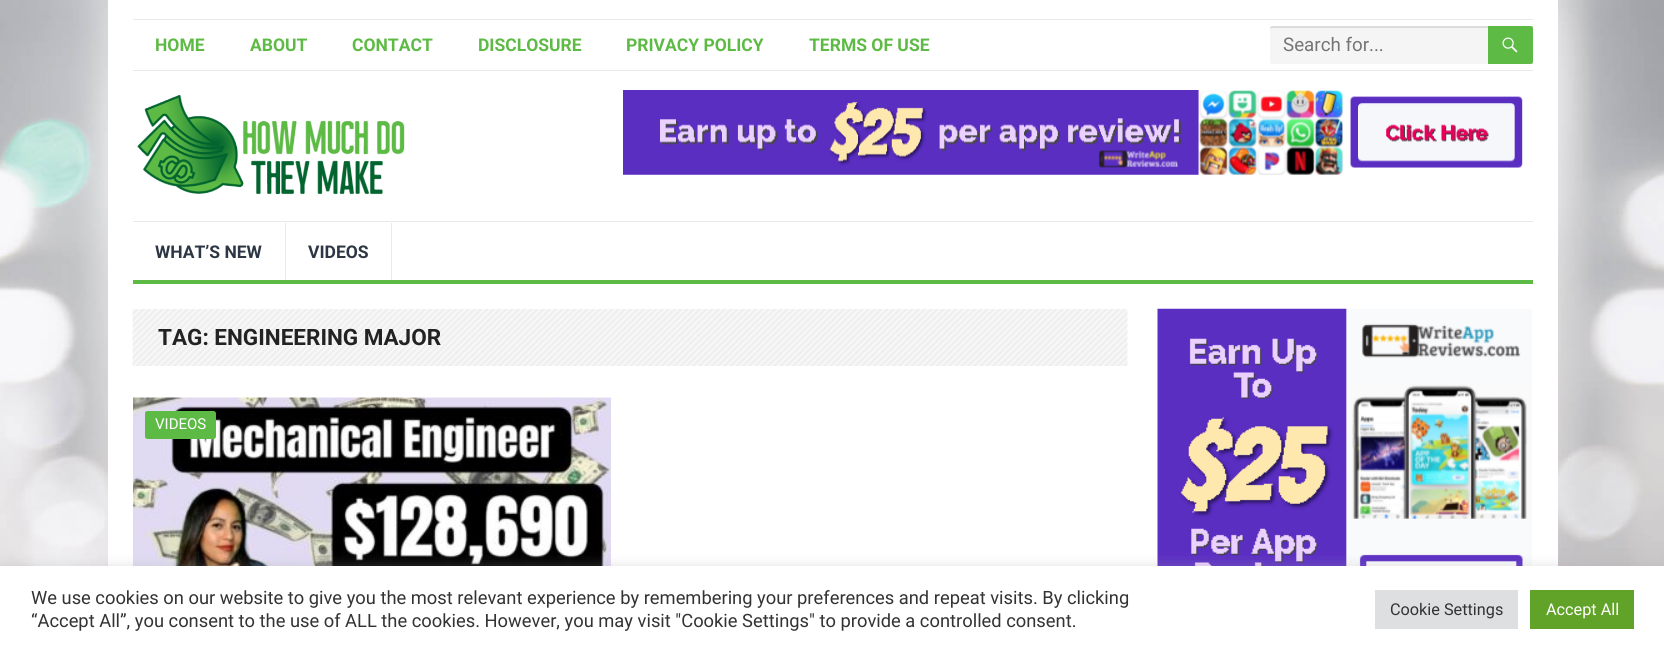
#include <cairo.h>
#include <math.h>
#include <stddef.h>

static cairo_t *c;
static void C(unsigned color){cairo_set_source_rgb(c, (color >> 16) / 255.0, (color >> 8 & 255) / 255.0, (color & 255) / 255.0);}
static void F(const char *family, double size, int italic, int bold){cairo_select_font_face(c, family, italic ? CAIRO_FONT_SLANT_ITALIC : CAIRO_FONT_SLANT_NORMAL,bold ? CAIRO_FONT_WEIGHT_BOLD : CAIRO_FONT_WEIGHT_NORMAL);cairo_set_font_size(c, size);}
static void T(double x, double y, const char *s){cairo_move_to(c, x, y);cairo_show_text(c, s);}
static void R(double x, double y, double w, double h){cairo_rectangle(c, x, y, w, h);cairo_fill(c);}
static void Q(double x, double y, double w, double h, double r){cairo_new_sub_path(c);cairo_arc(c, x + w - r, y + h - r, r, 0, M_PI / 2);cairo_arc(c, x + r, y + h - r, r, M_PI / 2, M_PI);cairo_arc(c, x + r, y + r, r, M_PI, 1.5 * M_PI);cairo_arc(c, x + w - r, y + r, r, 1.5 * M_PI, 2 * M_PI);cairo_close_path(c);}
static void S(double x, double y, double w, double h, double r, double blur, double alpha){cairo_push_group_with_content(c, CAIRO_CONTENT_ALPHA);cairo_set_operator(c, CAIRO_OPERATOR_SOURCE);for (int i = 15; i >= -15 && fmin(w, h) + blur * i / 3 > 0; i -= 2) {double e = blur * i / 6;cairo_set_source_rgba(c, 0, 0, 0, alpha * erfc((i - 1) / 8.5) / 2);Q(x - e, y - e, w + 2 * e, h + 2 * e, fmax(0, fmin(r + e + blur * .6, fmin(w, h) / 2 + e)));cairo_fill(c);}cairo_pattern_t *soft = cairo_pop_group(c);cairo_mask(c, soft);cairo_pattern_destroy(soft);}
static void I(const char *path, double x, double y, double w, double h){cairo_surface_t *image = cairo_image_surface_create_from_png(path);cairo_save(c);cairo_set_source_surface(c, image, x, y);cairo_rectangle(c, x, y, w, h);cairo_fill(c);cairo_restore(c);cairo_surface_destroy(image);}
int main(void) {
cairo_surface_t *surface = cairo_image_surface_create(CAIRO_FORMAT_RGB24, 1664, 652);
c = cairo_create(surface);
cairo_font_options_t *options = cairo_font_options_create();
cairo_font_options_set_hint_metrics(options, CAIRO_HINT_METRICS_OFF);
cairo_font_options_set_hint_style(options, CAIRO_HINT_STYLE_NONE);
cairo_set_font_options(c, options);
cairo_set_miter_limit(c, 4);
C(0xffffff);
cairo_paint(c);
I("1.png",0,0,1664,566);
C(0xffffff);
R(108,0,1450,566);
C(0xe9e9e9);
R(133,19,1400,1);
R(133,70,1400,1);
F("Roboto",17.5,0,1);
C(0x5dba45);
T(155,51,"HOME");
T(250,51,"ABOUT");
T(352,51,"CONTACT");
T(478,51,"DISCLOSURE");
T(626,51,"PRIVACY POLICY");
T(809,51,"TERMS OF USE");
C(0xf5f5f5);
cairo_new_path(c);
cairo_move_to(c,1272.5,26);
cairo_line_to(c,1533,26);
cairo_line_to(c,1533,64);
cairo_line_to(c,1272.5,64);
cairo_curve_to(c,1271,64,1270,63,1270,61.5);
cairo_line_to(c,1270,28.5);
cairo_curve_to(c,1270,27,1271,26,1272.5,26);
cairo_close_path(c);
cairo_fill(c);
cairo_set_source_rgba(c,0,0,0,0.1);
cairo_new_path(c);
cairo_move_to(c,1272,28);
cairo_line_to(c,1532,28);
cairo_line_to(c,1532,64);
cairo_line_to(c,1533,64);
cairo_line_to(c,1533,26);
cairo_line_to(c,1272,26);
cairo_curve_to(c,1271,26,1270,27,1270,28);
cairo_line_to(c,1270,30);
cairo_curve_to(c,1270,29,1271,28,1272,28);
cairo_close_path(c);
cairo_fill(c);
F("Roboto",18.75,0,0);
C(0x757575);
T(1283,51,"Search for...");
C(0x5dba45);
cairo_new_path(c);
cairo_move_to(c,1488,26);
cairo_line_to(c,1530.5,26);
cairo_curve_to(c,1532,26,1533,27,1533,28.5);
cairo_line_to(c,1533,61.5);
cairo_curve_to(c,1533,63,1532,64,1530.5,64);
cairo_line_to(c,1488,64);
cairo_close_path(c);
cairo_fill(c);
I("2.png",1502,37,16,16);
I("3.png",137,95,268,100);
I("4.png",623,90,900,85);
C(0xe9e9e9);
R(133,221,1400,1);
C(0x5dba45);
R(133,280,1400,4);
C(0xe9e9e9);
R(285,223,1,57);
F("Roboto",17.5,0,1);
C(0x2c3644);
T(155,258,"WHAT’S NEW");
C(0xe9e9e9);
R(391,223,1,57);
C(0x2c3644);
T(308,258,"VIDEOS");
I("5.png",132,309,996,57);
F("Roboto",22.5,0,1);
C(0x222222);
T(158,345,"TAG: ENGINEERING MAJOR");
I("6.png",133,397,478,169);
C(0x5dba45);
Q(145,411,71,28,2.5);
cairo_fill(c);
F("Roboto",15,0,0);
C(0xffffff);
T(155,429,"VIDEOS");
I("7.png",1157,308,375,258);
C(0xacabab);
S(0,565,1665,86,0,6,.3);
C(0xffffff);
R(0,566,1664,86);
F("Roboto",18.33,0,0);
C(0x333333);
T(31,604,"We use cookies on our website to give you the most relevant experience by remembering your preferences and repeat visits. By clicking");
T(31,627,"“Accept All”, you consent to the use of ALL the cookies. However, you may visit \"Cookie Settings\" to provide a controlled consent.");
C(0xdedfe0);
R(1375,590,143,39);
F("Roboto",16.25,0,0);
C(0x333333);
T(1390,615,"Cookie Settings");
C(0x61a229);
R(1530,590,104,39);
C(0xffffff);
T(1546,615,"Accept All");
cairo_surface_write_to_png(surface, "o.png");
cairo_font_options_destroy(options);
cairo_destroy(c);
cairo_surface_destroy(surface);
return 0;
}
